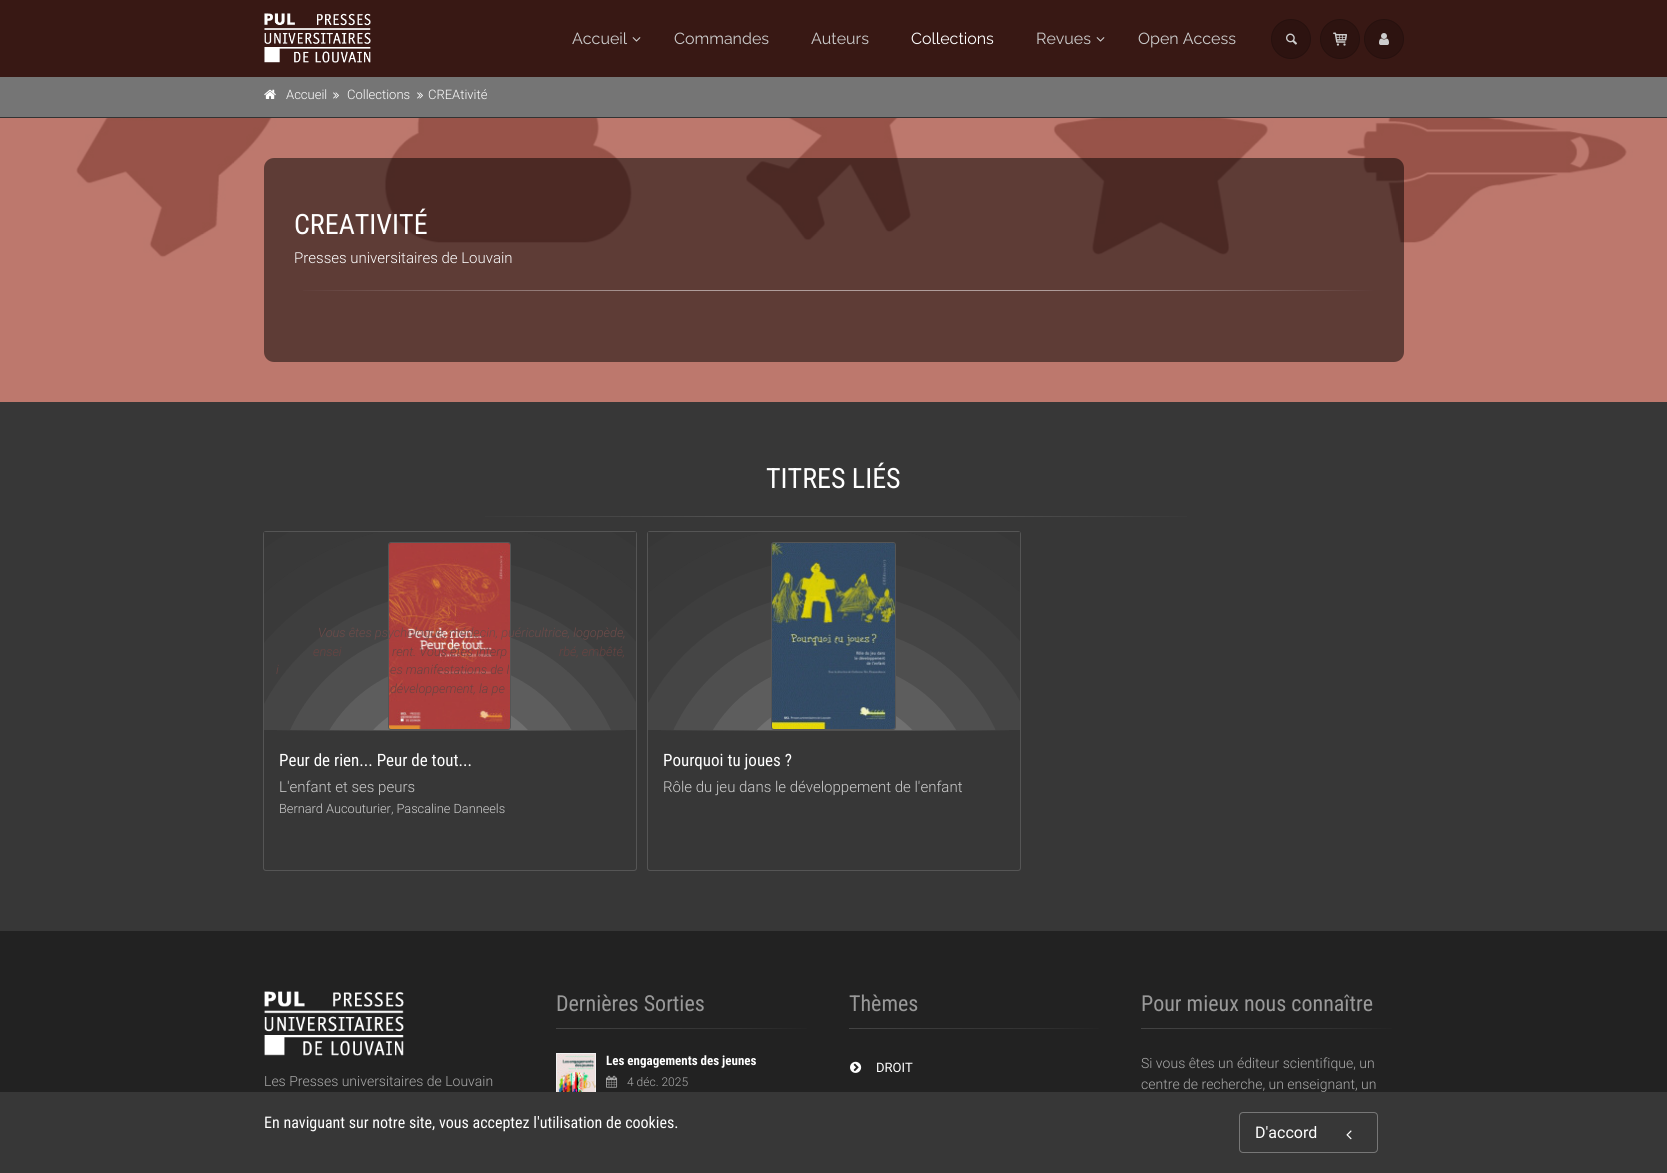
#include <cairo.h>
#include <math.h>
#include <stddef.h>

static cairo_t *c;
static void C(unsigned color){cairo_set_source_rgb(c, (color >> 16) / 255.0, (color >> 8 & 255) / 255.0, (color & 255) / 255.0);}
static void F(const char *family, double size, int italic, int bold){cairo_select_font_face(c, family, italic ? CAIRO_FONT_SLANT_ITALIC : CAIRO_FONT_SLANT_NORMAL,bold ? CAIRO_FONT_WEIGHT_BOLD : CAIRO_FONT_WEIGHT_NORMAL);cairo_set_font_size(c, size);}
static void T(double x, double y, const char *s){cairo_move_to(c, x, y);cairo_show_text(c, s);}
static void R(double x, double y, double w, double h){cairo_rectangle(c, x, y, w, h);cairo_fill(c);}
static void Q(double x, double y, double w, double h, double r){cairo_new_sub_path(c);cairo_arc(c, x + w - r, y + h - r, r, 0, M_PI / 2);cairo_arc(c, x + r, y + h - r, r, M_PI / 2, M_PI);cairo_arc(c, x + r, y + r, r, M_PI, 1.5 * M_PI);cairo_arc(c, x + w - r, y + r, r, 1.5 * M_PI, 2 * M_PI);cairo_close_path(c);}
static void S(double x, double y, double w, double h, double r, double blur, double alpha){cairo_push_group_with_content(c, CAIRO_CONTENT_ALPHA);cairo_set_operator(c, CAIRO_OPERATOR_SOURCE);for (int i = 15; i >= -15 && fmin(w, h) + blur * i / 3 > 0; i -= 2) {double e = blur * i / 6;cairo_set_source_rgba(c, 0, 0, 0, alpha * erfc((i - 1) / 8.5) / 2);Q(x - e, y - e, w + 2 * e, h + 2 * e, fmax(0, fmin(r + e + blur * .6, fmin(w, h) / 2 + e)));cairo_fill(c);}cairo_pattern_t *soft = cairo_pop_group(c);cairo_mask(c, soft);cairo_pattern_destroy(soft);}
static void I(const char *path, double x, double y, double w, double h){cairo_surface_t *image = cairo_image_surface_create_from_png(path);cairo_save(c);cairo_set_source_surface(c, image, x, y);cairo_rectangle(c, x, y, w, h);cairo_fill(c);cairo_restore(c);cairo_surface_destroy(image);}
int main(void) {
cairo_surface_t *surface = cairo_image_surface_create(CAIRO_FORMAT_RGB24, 1667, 1173);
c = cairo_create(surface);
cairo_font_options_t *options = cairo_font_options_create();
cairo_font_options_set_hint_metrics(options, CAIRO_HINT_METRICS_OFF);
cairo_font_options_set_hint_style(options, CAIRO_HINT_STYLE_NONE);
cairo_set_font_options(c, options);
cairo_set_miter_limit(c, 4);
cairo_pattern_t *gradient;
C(0x381814);
cairo_paint(c);
I("1.png",264,13,107,50);
F("Raleway",16,0,0);
C(0xcdcdcd);
T(572,44,"Accueil");
I("2.png",632,37,9,5);
T(674,44,"Commandes");
T(811,44,"Auteurs");
C(0xffffff);
T(911,44,"Collections");
C(0xcdcdcd);
T(1036,44,"Revues");
I("2.png",1096,37,9,5);
T(1138,44,"Open Access");
C(0x2d1310);
cairo_new_path(c);
cairo_arc(c,1291,39,20,0,2 * M_PI);
cairo_fill(c);
cairo_arc(c,1291,39,19.5,0,2 * M_PI);
cairo_set_source_rgba(c,0,0,0,0.15);
cairo_set_line_width(c,1);
cairo_stroke(c);
I("3.png",1286,33,11,12);
C(0x2d1310);
cairo_arc(c,1340,39,20,0,2 * M_PI);
cairo_fill(c);
cairo_arc(c,1340,39,19.5,0,2 * M_PI);
cairo_set_source_rgba(c,0,0,0,0.15);
cairo_stroke(c);
I("4.png",1333,32,14,14);
C(0x2d1310);
cairo_arc(c,1384,39,20,0,2 * M_PI);
cairo_fill(c);
cairo_arc(c,1384,39,19.5,0,2 * M_PI);
cairo_set_source_rgba(c,0,0,0,0.15);
cairo_stroke(c);
I("5.png",1379,33,10,12);
C(0x757575);
R(0,77,1667,40);
C(0x333333);
R(0,117,1667,1);
I("6.png",264,89,12,10);
F("Roboto Light",13,0,0);
C(0xffffff);
T(286,99,"Accueil");
I("7.png",333,92,6,7);
T(347,99,"Collections");
I("7.png",417,92,6,7);
T(428,99,"CREAtivité");
I("8.png",0,118,1667,284);
cairo_set_source_rgba(c,0,0,0,0.5);
Q(264,158,1140,204,10);
cairo_fill(c);
F("Roboto Condensed",28,0,0);
C(0xffffff);
T(294,234,"CREATIVITÉ");
F("Roboto Light",15,0,0);
T(294,263,"Presses universitaires de Louvain");
gradient = cairo_pattern_create_linear(294,291,1374,290);
cairo_pattern_add_color_stop_rgba(gradient,0,0.369,0.235,0.216,1);
cairo_pattern_add_color_stop_rgba(gradient,.35,0.686,0.616,0.608,1);
cairo_pattern_add_color_stop_rgba(gradient,.7,0.686,0.616,0.608,1);
cairo_pattern_add_color_stop_rgba(gradient,1,0.369,0.235,0.216,1);
cairo_set_source(c,gradient);
cairo_pattern_destroy(gradient);
R(303,290,1071,1);
C(0x373737);
R(0,402,1667,529);
F("Roboto Condensed",28,0,0);
C(0xffffff);
T(766,488,"TITRES LIÉS");
gradient = cairo_pattern_create_linear(459,517,1209,517);
cairo_pattern_add_color_stop_rgba(gradient,0,0.216,0.216,0.216,1);
cairo_pattern_add_color_stop_rgba(gradient,.35,0.314,0.314,0.314,1);
cairo_pattern_add_color_stop_rgba(gradient,.7,0.314,0.314,0.314,1);
cairo_pattern_add_color_stop_rgba(gradient,1,0.216,0.216,0.216,1);
cairo_set_source(c,gradient);
cairo_pattern_destroy(gradient);
R(485,516,702,1);
Q(263.5,531.5,373,339,2.5);
C(0x555555);
cairo_stroke(c);
C(0x373737);
R(264,532,372,2);
C(0x222222);
R(0,931,1667,161);
cairo_save(c);
cairo_rectangle(c,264,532,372,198);
cairo_clip(c);
C(0xd1d1d1);
S(396,749,109,174,0,104.5,1);
cairo_restore(c);
Q(388.5,542.5,122,187,2.5);
C(0x555555);
cairo_stroke(c);
I("9.png",389,543,121,186);
gradient = cairo_pattern_create_linear(264,731,636,731);
cairo_pattern_add_color_stop_rgba(gradient,0,0.216,0.216,0.216,1);
cairo_pattern_add_color_stop_rgba(gradient,.35,0.314,0.314,0.314,1);
cairo_pattern_add_color_stop_rgba(gradient,.7,0.314,0.314,0.314,1);
cairo_pattern_add_color_stop_rgba(gradient,1,0.216,0.216,0.216,1);
cairo_set_source(c,gradient);
cairo_pattern_destroy(gradient);
R(277,730,348,1);
Q(647.5,531.5,373,339,2.5);
C(0x555555);
cairo_stroke(c);
C(0x373737);
R(648,532,372,2);
cairo_save(c);
cairo_rectangle(c,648,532,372,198);
cairo_clip(c);
C(0xd1d1d1);
S(779,749,111,174,0,104.5,1);
cairo_restore(c);
F("Roboto Light",12.75,1,0);
C(0x6d4a48);
T(318,637,"Vous êtes psychologue, médecin, puéricultrice, logopède,");
C(0x684341);
T(313,656,"ensei");
T(392,656,"rent. Vous êtes interp");
T(559,656,"rbé, embêté,");
T(276,674,"i");
T(390,674,"es manifestations de l");
T(390,693,"développement, la pe");
F("Roboto Condensed",17,0,0);
C(0xffffff);
T(279,766,"Peur de rien... Peur de tout...");
F("Roboto Light",15,0,0);
C(0xcdcdcd);
T(279,792,"L'enfant et ses peurs");
F("Roboto Light",12.75,0,0);
T(279,813,"Bernard Aucouturier, Pascaline Danneels");
Q(771.5,542.5,124,187,2.5);
C(0x555555);
cairo_stroke(c);
I("10.png",772,543,123,186);
gradient = cairo_pattern_create_linear(648,731,1020,731);
cairo_pattern_add_color_stop_rgba(gradient,0,0.216,0.216,0.216,1);
cairo_pattern_add_color_stop_rgba(gradient,.35,0.314,0.314,0.314,1);
cairo_pattern_add_color_stop_rgba(gradient,.7,0.314,0.314,0.314,1);
cairo_pattern_add_color_stop_rgba(gradient,1,0.216,0.216,0.216,1);
cairo_set_source(c,gradient);
cairo_pattern_destroy(gradient);
R(661,730,348,1);
F("Roboto Condensed",17,0,0);
C(0xffffff);
T(663,766,"Pourquoi tu joues ?");
F("Roboto Light",15,0,0);
C(0xcdcdcd);
T(663,792,"Rôle du jeu dans le développement de l'enfant");
I("11.png",264,991,140,65);
F("Roboto Light",14,0,0);
C(0xaaaaaa);
T(264,1086,"Les Presses universitaires de Louvain");
F("Roboto Condensed",22,0,0);
C(0x999999);
T(556,1011,"Dernières Sorties");
gradient = cairo_pattern_create_linear(556,1029,819,1029);
cairo_pattern_add_color_stop_rgba(gradient,0,0.267,0.267,0.267,1);
cairo_pattern_add_color_stop_rgba(gradient,.35,0.224,0.224,0.224,1);
cairo_pattern_add_color_stop_rgba(gradient,.7,0.196,0.196,0.196,1);
cairo_pattern_add_color_stop_rgba(gradient,1,0.133,0.133,0.133,1);
cairo_set_source(c,gradient);
cairo_pattern_destroy(gradient);
R(556,1028,251,1);
cairo_rectangle(c,556.5,1053.5,39,58);
C(0xf1f1f1);
cairo_stroke(c);
I("12.png",557,1054,38,38);
cairo_save(c);
cairo_rectangle(c,556,1053,40,59);
cairo_clip(c);
F("Liberation Serif",14,0,0);
C(0xddc5a0);
T(578,1088,"cov");
cairo_restore(c);
F("Roboto Condensed",13,0,1);
C(0xffffff);
T(606,1065,"Les engagements des jeunes");
I("13.png",606,1075,12,13);
F("Roboto Light",12,0,0);
C(0xaaaaaa);
T(627,1086,"4 déc. 2025");
F("Roboto Condensed",22,0,0);
C(0x999999);
T(849,1011,"Thèmes");
gradient = cairo_pattern_create_linear(849,1029,1111,1029);
cairo_pattern_add_color_stop_rgba(gradient,0,0.267,0.267,0.267,1);
cairo_pattern_add_color_stop_rgba(gradient,.35,0.224,0.224,0.224,1);
cairo_pattern_add_color_stop_rgba(gradient,.7,0.196,0.196,0.196,1);
cairo_pattern_add_color_stop_rgba(gradient,1,0.133,0.133,0.133,1);
cairo_set_source(c,gradient);
cairo_pattern_destroy(gradient);
R(849,1028,250,1);
I("14.png",850,1061,12,12);
F("Roboto",13,0,0);
C(0xffffff);
T(876,1072,"DROIT");
F("Roboto Condensed",22,0,0);
C(0x999999);
T(1141,1011,"Pour mieux nous connaître");
gradient = cairo_pattern_create_linear(1141,1029,1404,1029);
cairo_pattern_add_color_stop_rgba(gradient,0,0.267,0.267,0.267,1);
cairo_pattern_add_color_stop_rgba(gradient,.35,0.224,0.224,0.224,1);
cairo_pattern_add_color_stop_rgba(gradient,.7,0.196,0.196,0.196,1);
cairo_pattern_add_color_stop_rgba(gradient,1,0.133,0.133,0.133,1);
cairo_set_source(c,gradient);
cairo_pattern_destroy(gradient);
R(1141,1028,251,1);
F("Roboto Light",14,0,0);
C(0xaaaaaa);
T(1141,1068,"Si vous êtes un éditeur scientifique, un");
T(1141,1089,"centre de recherche, un enseignant, un");
C(0x373737);
R(0,1092,1667,81);
F("Roboto Condensed",16,0,0);
C(0xffffff);
T(264,1128,"En naviguant sur notre site, vous acceptez l'utilisation de cookies.");
Q(1239.5,1112.5,138,40,3.5);
C(0x777777);
cairo_stroke(c);
F("Roboto",16,0,0);
C(0xffffff);
T(1255,1138,"D'accord");
I("15.png",1346,1130,6,10);
cairo_surface_write_to_png(surface, "o.png");
cairo_font_options_destroy(options);
cairo_destroy(c);
cairo_surface_destroy(surface);
return 0;
}
